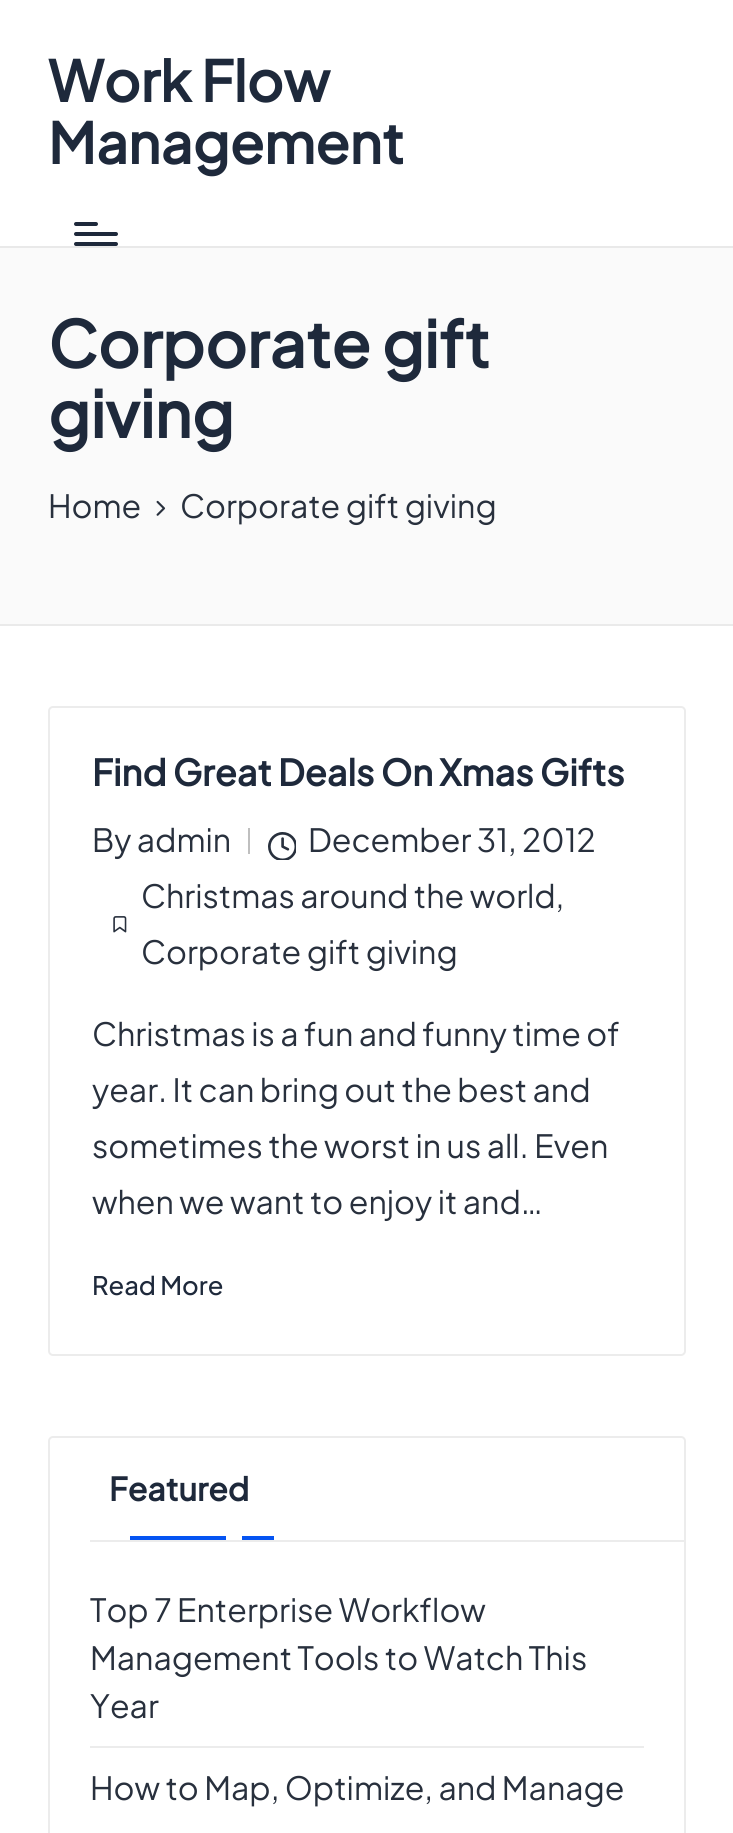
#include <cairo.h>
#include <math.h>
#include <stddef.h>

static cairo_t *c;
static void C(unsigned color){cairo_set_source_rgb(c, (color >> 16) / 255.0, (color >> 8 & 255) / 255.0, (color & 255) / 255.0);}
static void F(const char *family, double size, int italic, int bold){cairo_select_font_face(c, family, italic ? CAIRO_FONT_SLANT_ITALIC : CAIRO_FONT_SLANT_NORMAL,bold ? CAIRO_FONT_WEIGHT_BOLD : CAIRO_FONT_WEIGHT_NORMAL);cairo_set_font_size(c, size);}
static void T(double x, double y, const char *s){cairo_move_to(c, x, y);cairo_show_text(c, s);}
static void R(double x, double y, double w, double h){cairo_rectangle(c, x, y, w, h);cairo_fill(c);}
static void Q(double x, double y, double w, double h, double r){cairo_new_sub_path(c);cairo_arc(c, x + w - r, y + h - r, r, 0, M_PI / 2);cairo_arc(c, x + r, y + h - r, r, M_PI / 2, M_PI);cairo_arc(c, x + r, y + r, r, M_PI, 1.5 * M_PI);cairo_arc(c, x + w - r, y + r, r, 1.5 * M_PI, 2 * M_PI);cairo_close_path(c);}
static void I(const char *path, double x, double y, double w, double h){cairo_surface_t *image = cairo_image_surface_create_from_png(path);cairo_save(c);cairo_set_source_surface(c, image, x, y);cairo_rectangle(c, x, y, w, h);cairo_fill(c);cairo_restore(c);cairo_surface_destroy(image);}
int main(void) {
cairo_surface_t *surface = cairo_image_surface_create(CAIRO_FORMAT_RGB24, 733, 1833);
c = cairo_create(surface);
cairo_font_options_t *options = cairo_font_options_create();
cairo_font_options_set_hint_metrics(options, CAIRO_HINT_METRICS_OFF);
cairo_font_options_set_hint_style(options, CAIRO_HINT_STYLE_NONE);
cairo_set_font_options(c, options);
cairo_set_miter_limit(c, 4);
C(0xffffff);
cairo_paint(c);
C(0xe9e9e9);
R(0,246,733,2);
F("Plus Jakarta Sans",56,0,1);
C(0x1e293b);
T(48,102,"Work Flow");
T(48,164,"Management");
Q(74,232,44,4,2);
cairo_fill(c);
Q(74,222,24,4,2);
cairo_fill(c);
Q(74,242,44,4,2);
cairo_fill(c);
C(0xfafafa);
R(0,248,733,376);
C(0xeaeaea);
R(0,624,733,2);
F("Plus Jakarta Sans",64,0,1);
C(0x1e293b);
T(48,368,"Corporate gift");
T(48,438,"giving");
F("Plus Jakarta Sans",32,0,0);
C(0x28303d);
T(48,518,"Home");
I("1.png",156,500,10,16);
T(180,518,"Corporate gift giving");
Q(49,707,636,648,4);
C(0xececec);
cairo_stroke(c);
F("Plus Jakarta Sans",36,0,1);
C(0x1e293b);
T(92,786,"Find Great Deals On Xmas Gifts");
F("Plus Jakarta Sans",32,0,0);
C(0x28303d);
T(92,852,"By admin");
C(0xbfbfbf);
R(248,828,2,26);
I("2.png",268,832,28,28);
C(0x28303d);
T(308,852,"December 31, 2012");
I("3.png",113,916,14,17);
T(141,908,"Christmas around the world,");
T(141,964,"Corporate gift giving");
T(92,1046,"Christmas is a fun and funny time of");
T(92,1102,"year. It can bring out the best and");
T(92,1158,"sometimes the worst in us all. Even");
T(92,1214,"when we want to enjoy it and…");
F("Plus Jakarta Sans Medium",25.5,0,0);
C(0x1e293b);
T(92,1295,"Read More");
Q(49,1437,636,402,4);
C(0xececec);
cairo_stroke(c);
R(90,1540,594,2);
F("Plus Jakarta Sans",32,0,1);
C(0x1e293b);
T(109,1501,"Featured");
C(0x0554f2);
R(130,1536,96,4);
R(242,1536,32,4);
F("Plus Jakarta Sans",32,0,0);
C(0x28303d);
T(90,1622,"Top 7 Enterprise Workflow");
T(90,1670,"Management Tools to Watch This");
T(90,1718,"Year");
C(0xececec);
R(90,1746,554,2);
C(0x28303d);
T(90,1800,"How to Map, Optimize, and Manage");
cairo_surface_write_to_png(surface, "o.png");
cairo_font_options_destroy(options);
cairo_destroy(c);
cairo_surface_destroy(surface);
return 0;
}
